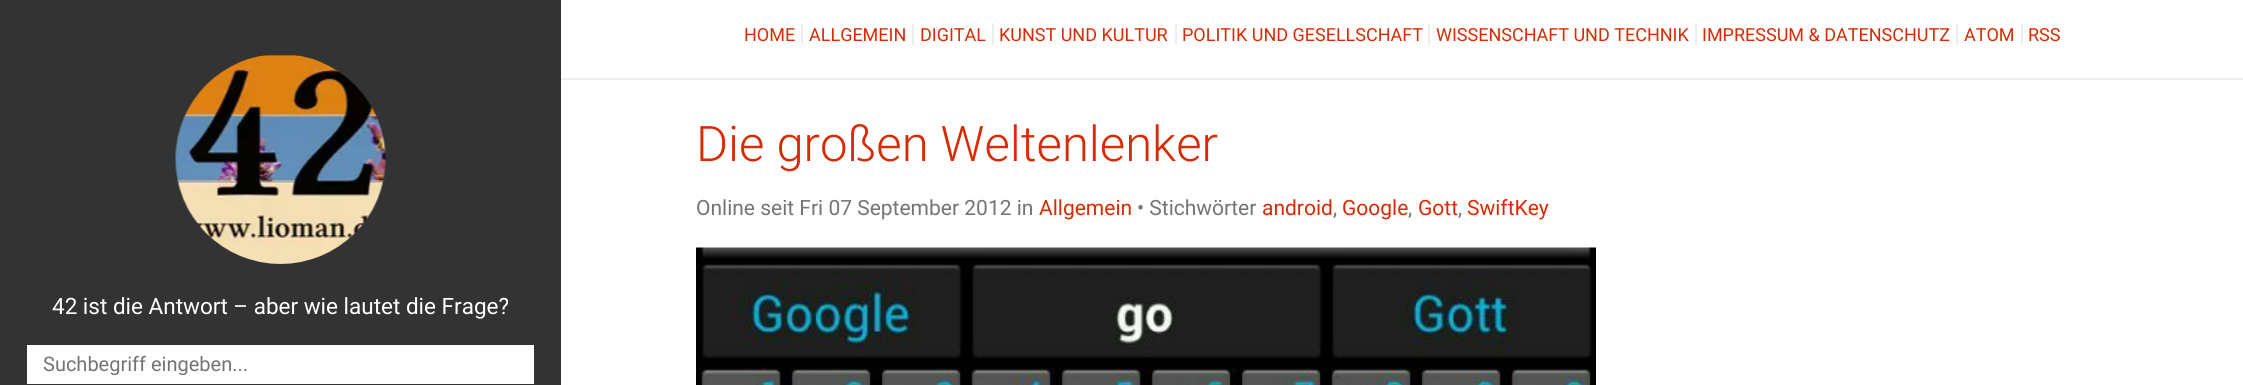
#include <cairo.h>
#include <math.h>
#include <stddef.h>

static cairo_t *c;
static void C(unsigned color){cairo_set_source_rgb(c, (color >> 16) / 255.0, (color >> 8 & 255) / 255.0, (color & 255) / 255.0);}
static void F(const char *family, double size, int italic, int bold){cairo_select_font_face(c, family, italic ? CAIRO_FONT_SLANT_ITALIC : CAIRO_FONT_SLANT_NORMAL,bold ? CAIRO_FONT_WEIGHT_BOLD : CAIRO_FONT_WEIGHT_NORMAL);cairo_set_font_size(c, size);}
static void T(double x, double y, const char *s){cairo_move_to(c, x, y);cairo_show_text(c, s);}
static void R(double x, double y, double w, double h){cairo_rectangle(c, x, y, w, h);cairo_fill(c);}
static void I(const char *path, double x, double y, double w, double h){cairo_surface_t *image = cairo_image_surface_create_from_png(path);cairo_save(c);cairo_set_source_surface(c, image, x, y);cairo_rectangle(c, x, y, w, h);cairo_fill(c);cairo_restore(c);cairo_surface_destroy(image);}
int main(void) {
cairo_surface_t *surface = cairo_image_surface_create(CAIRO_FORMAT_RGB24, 2243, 385);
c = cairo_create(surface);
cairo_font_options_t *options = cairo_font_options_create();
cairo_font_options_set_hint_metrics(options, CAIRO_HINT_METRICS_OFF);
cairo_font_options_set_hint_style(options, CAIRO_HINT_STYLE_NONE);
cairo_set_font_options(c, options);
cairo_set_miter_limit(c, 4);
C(0xffffff);
cairo_paint(c);
C(0xeeeeee);
R(561,78,1682,2);
F("Roboto",18,0,0);
C(0xd92b03);
T(744,41,"HOME");
C(0xeeeeee);
R(801,24,2,21);
C(0xd92b03);
T(809,41,"ALLGEMEIN");
C(0xeeeeee);
R(912,24,2,21);
C(0xd92b03);
T(920,41,"DIGITAL");
C(0xeeeeee);
R(992,24,2,21);
C(0xd92b03);
T(999,41,"KUNST UND KULTUR");
C(0xeeeeee);
R(1175,24,2,21);
C(0xd92b03);
T(1182,41,"POLITIK UND GESELLSCHAFT");
C(0xeeeeee);
R(1428,24,2,21);
C(0xd92b03);
T(1436,41,"WISSENSCHAFT UND TECHNIK");
C(0xeeeeee);
R(1695,24,2,21);
C(0xd92b03);
T(1702,41,"IMPRESSUM & DATENSCHUTZ");
C(0xeeeeee);
R(1956,24,2,21);
C(0xd92b03);
T(1964,41,"ATOM");
C(0xeeeeee);
R(2021,24,2,21);
C(0xd92b03);
T(2028,41,"RSS");
F("Roboto Light",49,0,0);
T(696,161,"Die großen Weltenlenker");
F("Roboto",21,0,0);
C(0x757474);
T(696,215,"Online seit Fri 07 September 2012 in");
C(0xd92b03);
T(1039,215,"Allgemein");
C(0x757474);
T(1137,215,"• Stichwörter");
C(0xd92b03);
T(1262,215,"android");
C(0x757474);
T(1333,215,",");
C(0xd92b03);
T(1342,215,"Google");
C(0x757474);
T(1408,215,",");
C(0xd92b03);
T(1418,215,"Gott");
C(0x757474);
T(1458,215,",");
C(0xd92b03);
T(1467,215,"SwiftKey");
I("1.png",696,247,900,138);
C(0x333333);
R(0,0,561,385);
I("2.png",175,55,211,209);
F("Roboto",22.5,0,0);
C(0xffffff);
T(52,314,"42 ist die Antwort – aber wie lautet die Frage?");
R(27,345,507,39);
cairo_save(c);
cairo_rectangle(c,44,353,474,22);
cairo_clip(c);
F("Roboto",20,0,0);
C(0x757474);
T(43,371,"Suchbegriff eingeben...");
cairo_restore(c);
cairo_surface_write_to_png(surface, "o.png");
cairo_font_options_destroy(options);
cairo_destroy(c);
cairo_surface_destroy(surface);
return 0;
}
